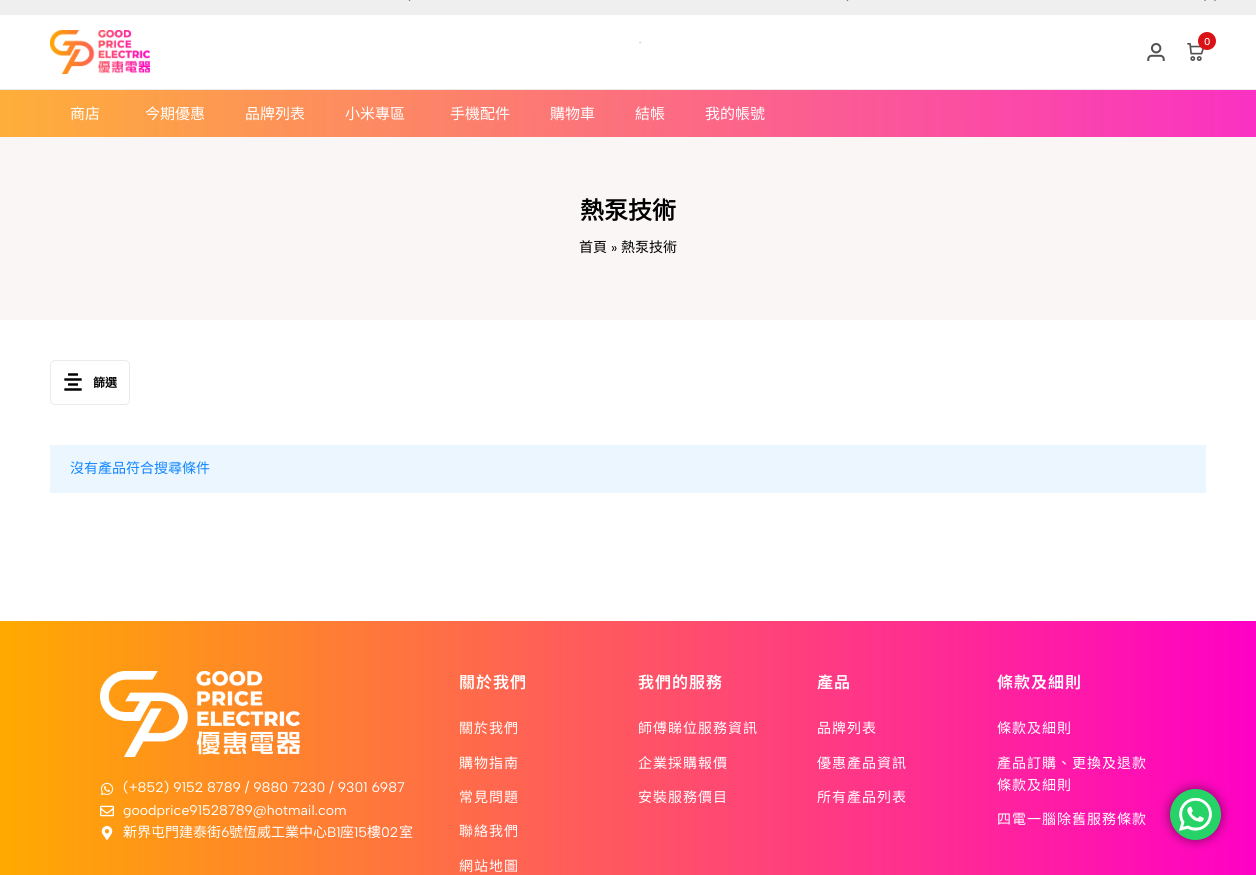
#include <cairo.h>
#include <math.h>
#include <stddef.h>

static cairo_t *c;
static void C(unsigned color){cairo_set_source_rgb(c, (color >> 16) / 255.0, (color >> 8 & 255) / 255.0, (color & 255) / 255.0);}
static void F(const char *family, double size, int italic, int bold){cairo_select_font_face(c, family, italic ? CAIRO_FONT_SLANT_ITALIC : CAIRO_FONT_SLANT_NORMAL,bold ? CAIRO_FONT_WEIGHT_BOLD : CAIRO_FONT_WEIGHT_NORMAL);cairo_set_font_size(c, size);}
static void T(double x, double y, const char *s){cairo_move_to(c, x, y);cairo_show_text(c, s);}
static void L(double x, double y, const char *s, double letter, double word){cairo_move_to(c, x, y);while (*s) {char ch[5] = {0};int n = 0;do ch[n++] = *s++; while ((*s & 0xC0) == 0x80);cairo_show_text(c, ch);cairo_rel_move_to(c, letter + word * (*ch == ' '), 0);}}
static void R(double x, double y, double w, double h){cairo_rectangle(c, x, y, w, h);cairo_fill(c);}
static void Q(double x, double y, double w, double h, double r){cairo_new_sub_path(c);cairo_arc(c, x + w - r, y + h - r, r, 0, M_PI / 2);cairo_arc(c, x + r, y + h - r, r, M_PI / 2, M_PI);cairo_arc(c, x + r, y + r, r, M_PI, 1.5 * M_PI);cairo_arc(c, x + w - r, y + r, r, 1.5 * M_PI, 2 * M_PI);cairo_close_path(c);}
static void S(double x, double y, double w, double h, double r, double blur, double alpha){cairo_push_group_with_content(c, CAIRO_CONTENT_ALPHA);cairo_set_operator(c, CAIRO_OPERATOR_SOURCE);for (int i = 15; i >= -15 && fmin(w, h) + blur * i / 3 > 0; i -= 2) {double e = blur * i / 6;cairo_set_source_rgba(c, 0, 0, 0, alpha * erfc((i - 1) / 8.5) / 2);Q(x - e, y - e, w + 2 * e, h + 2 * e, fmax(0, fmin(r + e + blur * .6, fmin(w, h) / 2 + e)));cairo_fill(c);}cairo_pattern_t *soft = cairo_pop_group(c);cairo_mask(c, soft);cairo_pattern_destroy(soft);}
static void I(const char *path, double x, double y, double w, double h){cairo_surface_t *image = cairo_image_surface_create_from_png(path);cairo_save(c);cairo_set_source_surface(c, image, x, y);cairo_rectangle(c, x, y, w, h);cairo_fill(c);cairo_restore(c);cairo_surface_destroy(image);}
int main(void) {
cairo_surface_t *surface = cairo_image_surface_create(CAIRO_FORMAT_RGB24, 1256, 875);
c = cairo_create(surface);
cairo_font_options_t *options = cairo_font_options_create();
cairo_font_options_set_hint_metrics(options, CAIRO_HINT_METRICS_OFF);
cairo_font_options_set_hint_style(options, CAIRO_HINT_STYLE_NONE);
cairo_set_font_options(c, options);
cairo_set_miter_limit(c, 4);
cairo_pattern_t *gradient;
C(0xffffff);
cairo_paint(c);
C(0xefefef);
R(0,0,1256,15);
I("1.png",408,0,3,1);
I("1.png",846,0,3,1);
I("2.png",1204,0,12,1);
C(0xebebeb);
R(0,89,1256,1);
I("3.png",50,30,100,44);
cairo_new_path(c);
cairo_move_to(c,640,42.5);
cairo_line_to(c,640.5,42.5);
C(0xdddddd);
cairo_set_line_width(c,1.9);
cairo_set_line_cap(c,CAIRO_LINE_CAP_ROUND);
cairo_stroke(c);
I("4.png",1187,43,17,18);
C(0xdb1215);
cairo_arc(c,1207,41,9,0,2 * M_PI);
cairo_fill(c);
F("Albert Sans Medium",10,0,0);
C(0xffffff);
T(1204,45,"0");
I("5.png",1147,43,18,18);
gradient = cairo_pattern_create_linear(0,115,1256,114);
cairo_pattern_add_color_stop_rgba(gradient,0,0.996,0.686,0.224,1);
cairo_pattern_add_color_stop_rgba(gradient,1,0.98,0.192,0.761,1);
cairo_set_source(c,gradient);
cairo_pattern_destroy(gradient);
R(0,90,1256,47);
F("Noto Sans CJK HK",15,0,0);
C(0xffffff);
T(70,119,"商店");
T(145,119,"今期優惠");
T(245,119,"品牌列表");
T(345,119,"小米專區");
T(450,119,"手機配件");
T(550,119,"購物車");
T(635,119,"結帳");
T(705,119,"我的帳號");
C(0xfbf6f6);
R(0,137,1256,183);
F("Noto Sans CJK HK",24,0,1);
C(0x000000);
T(580,219,"熱泵技術");
F("Noto Sans CJK HK",14,0,0);
T(579,252,"首頁");
F("Albert Sans",14,0,0);
T(611,252,"»");
F("Noto Sans CJK HK",14,0,0);
T(621,252,"熱泵技術");
Q(50.5,360.5,79,44,4.5);
C(0xebebeb);
cairo_set_line_width(c,1);
cairo_set_line_cap(c,CAIRO_LINE_CAP_BUTT);
cairo_stroke(c);
I("6.png",64,373,18,18);
F("Noto Sans CJK HK",12,0,1);
C(0x000000);
T(93,387,"篩選");
C(0xecf6ff);
R(50,445,1156,48);
F("Noto Sans CJK HK",14,0,0);
C(0x0f86ff);
T(70,473,"沒有產品符合搜尋條件");
gradient = cairo_pattern_create_linear(0,762,1256,762);
cairo_pattern_add_color_stop_rgba(gradient,0,1,0.667,0,1);
cairo_pattern_add_color_stop_rgba(gradient,1,1,0,0.776,1);
cairo_set_source(c,gradient);
cairo_pattern_destroy(gradient);
R(0,621,1256,254);
I("7.png",100,671,200,86);
I("8.png",100,782,14,13);
F("Albert Sans",14,0,0);
C(0xffffff);
T(123,792,"(+852) 9152 8789 / 9880 7230 / 9301 6987");
I("9.png",100,805,14,12);
T(123,815,"goodprice91528789@hotmail.com");
I("10.png",101,826,12,14);
F("Noto Sans CJK HK",14,0,0);
T(123,837,"新界屯門建泰街");
F("Albert Sans",14,0,0);
T(221,837,"6");
F("Noto Sans CJK HK",14,0,0);
T(229,837,"號恆威工業中心");
F("Albert Sans",14,0,0);
T(327,837,"B1");
F("Noto Sans CJK HK",14,0,0);
T(340,837,"座");
F("Albert Sans",14,0,0);
T(354,837,"15");
F("Noto Sans CJK HK",14,0,0);
T(367,837,"樓");
F("Albert Sans",14,0,0);
T(381,837,"02");
F("Noto Sans CJK HK",14,0,0);
T(399,837,"室");
F("Noto Sans TC SemiBold",16,0,0);
L(459,688,"關於我們",1,0);
F("Noto Sans CJK HK",14,0,0);
L(459,733,"關於我們",1,0);
L(459,768,"購物指南",1,0);
L(459,802,"常見問題",1,0);
L(459,836,"聯絡我們",1,0);
L(459,871,"網站地圖",1,0);
F("Noto Sans TC SemiBold",16,0,0);
L(638,688,"我們的服務",1,0);
F("Noto Sans CJK HK",14,0,0);
L(638,733,"師傅睇位服務資訊",1,0);
L(638,768,"企業採購報價",1,0);
L(638,802,"安裝服務價目",1,0);
F("Noto Sans TC SemiBold",16,0,0);
L(817,688,"產品",1,0);
F("Noto Sans CJK HK",14,0,0);
L(817,733,"品牌列表",1,0);
L(817,768,"優惠產品資訊",1,0);
L(817,802,"所有產品列表",1,0);
F("Noto Sans TC SemiBold",16,0,0);
L(997,688,"條款及細則",1,0);
F("Noto Sans CJK HK",14,0,0);
L(997,733,"條款及細則",1,0);
L(997,768,"產品訂購、更換及退款",1,0);
L(997,790,"條款及細則",1,0);
L(997,824,"四電一腦除舊服務條款",1,0);
C(0x000000);
S(1170,789,51,51,25.5,5.5,.5);
C(0x25d366);
cairo_arc(c,1195.5,814.5,25.5,0,2 * M_PI);
cairo_fill(c);
I("11.png",1179,798,33,33);
cairo_surface_write_to_png(surface, "o.png");
cairo_font_options_destroy(options);
cairo_destroy(c);
cairo_surface_destroy(surface);
return 0;
}
